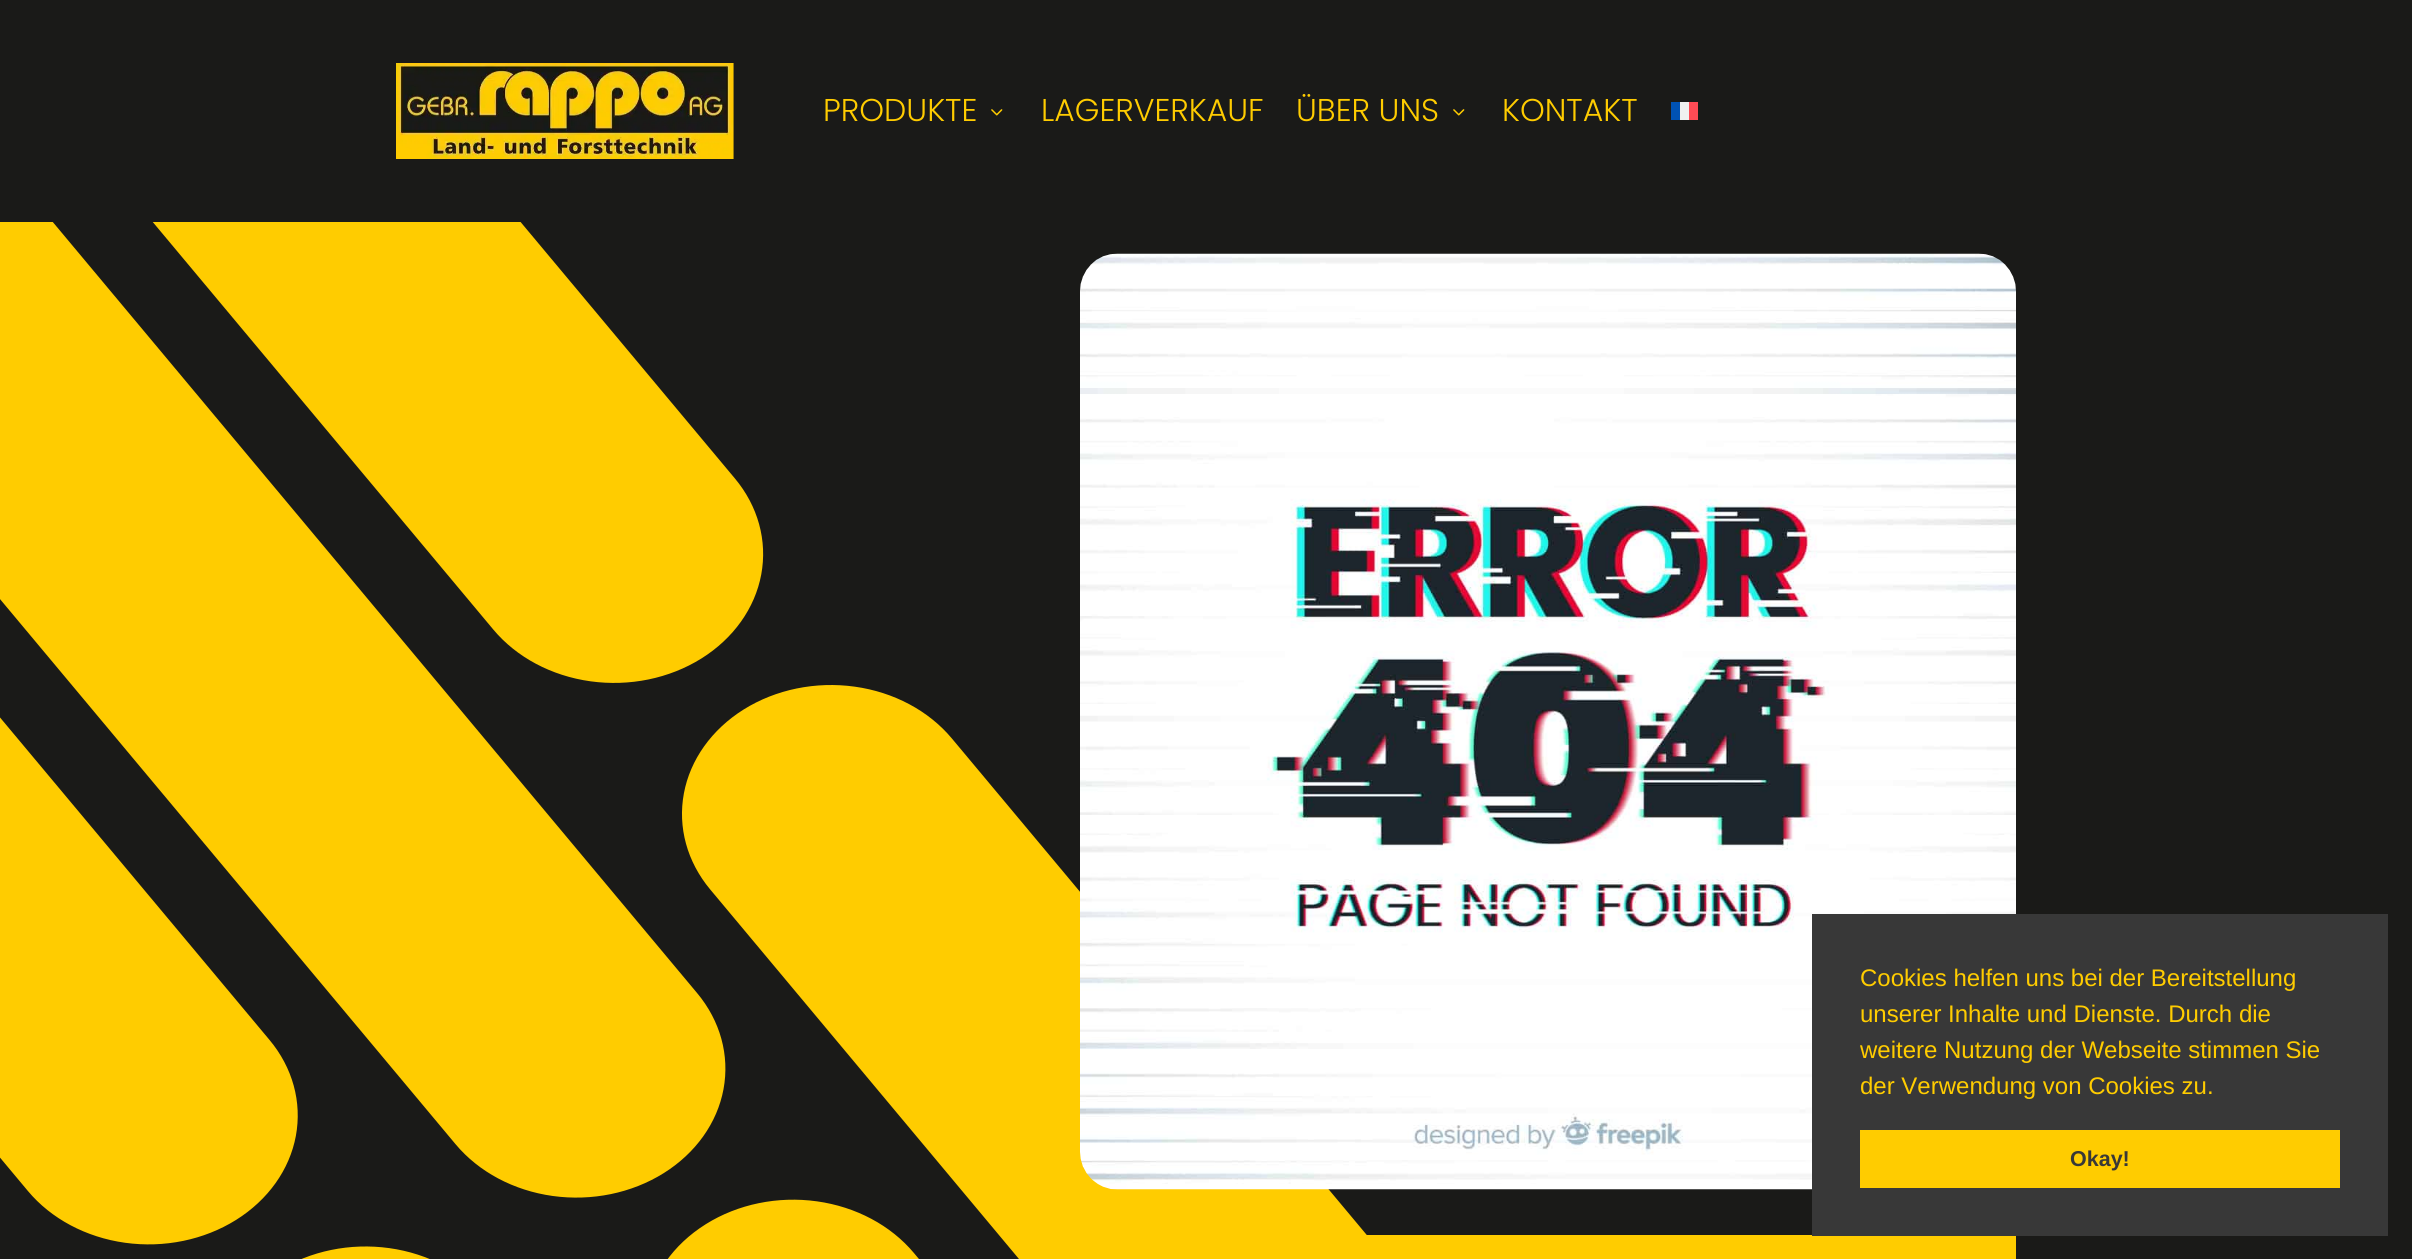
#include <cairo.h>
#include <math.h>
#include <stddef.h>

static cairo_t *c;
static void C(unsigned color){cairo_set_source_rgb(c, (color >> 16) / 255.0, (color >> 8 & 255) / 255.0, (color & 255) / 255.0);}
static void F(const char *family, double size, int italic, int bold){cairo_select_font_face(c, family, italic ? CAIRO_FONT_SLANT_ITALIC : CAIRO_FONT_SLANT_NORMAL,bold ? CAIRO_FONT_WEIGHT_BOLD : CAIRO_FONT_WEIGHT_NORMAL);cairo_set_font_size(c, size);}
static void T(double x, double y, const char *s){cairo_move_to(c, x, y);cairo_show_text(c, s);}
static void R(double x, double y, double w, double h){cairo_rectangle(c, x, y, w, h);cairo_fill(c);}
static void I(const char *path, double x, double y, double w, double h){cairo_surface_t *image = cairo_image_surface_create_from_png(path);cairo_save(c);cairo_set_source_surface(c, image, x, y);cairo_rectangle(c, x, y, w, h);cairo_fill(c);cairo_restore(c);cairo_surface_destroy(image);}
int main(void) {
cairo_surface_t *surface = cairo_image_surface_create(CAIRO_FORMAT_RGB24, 2412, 1259);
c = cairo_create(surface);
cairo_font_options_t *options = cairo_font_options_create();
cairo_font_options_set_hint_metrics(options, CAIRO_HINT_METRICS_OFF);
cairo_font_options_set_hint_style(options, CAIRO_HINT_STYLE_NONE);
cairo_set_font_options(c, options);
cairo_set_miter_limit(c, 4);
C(0xffcc00);
cairo_paint(c);
C(0x1a1a18);
R(0,0,2412,222);
I("1.png",396,63,338,96);
F("Poppins Light",31.5,0,0);
C(0xffcc00);
T(823,121,"PRODUKTE");
I("2.png",991,109,12,7);
T(1041,121,"LAGERVERKAUF");
T(1296,121,"ÜBER UNS");
I("2.png",1453,109,12,7);
T(1502,121,"KONTAKT");
C(0xf0f0f0);
R(1680,102,9,18);
C(0xff4b55);
R(1689,102,9,18);
C(0x0052b4);
R(1671,102,9,18);
I("3.png",0,222,2412,1037);
I("4.png",1080,253,936,937);
C(0xffcc00);
R(1366,1235,650,24);
C(0x383838);
R(1812,914,576,322);
F("Liberation Sans",24,0,0);
C(0xffcc00);
T(1860,986,"Cookies helfen uns bei der Bereitstellung");
T(1860,1022,"unserer Inhalte und Dienste. Durch die");
T(1860,1058,"weitere Nutzung der Webseite stimmen Sie");
T(1860,1094,"der Verwendung von Cookies zu.");
R(1860,1130,480,58);
F("Liberation Sans",21.5,0,1);
C(0x383838);
T(2070,1166,"Okay!");
cairo_surface_write_to_png(surface, "o.png");
cairo_font_options_destroy(options);
cairo_destroy(c);
cairo_surface_destroy(surface);
return 0;
}
